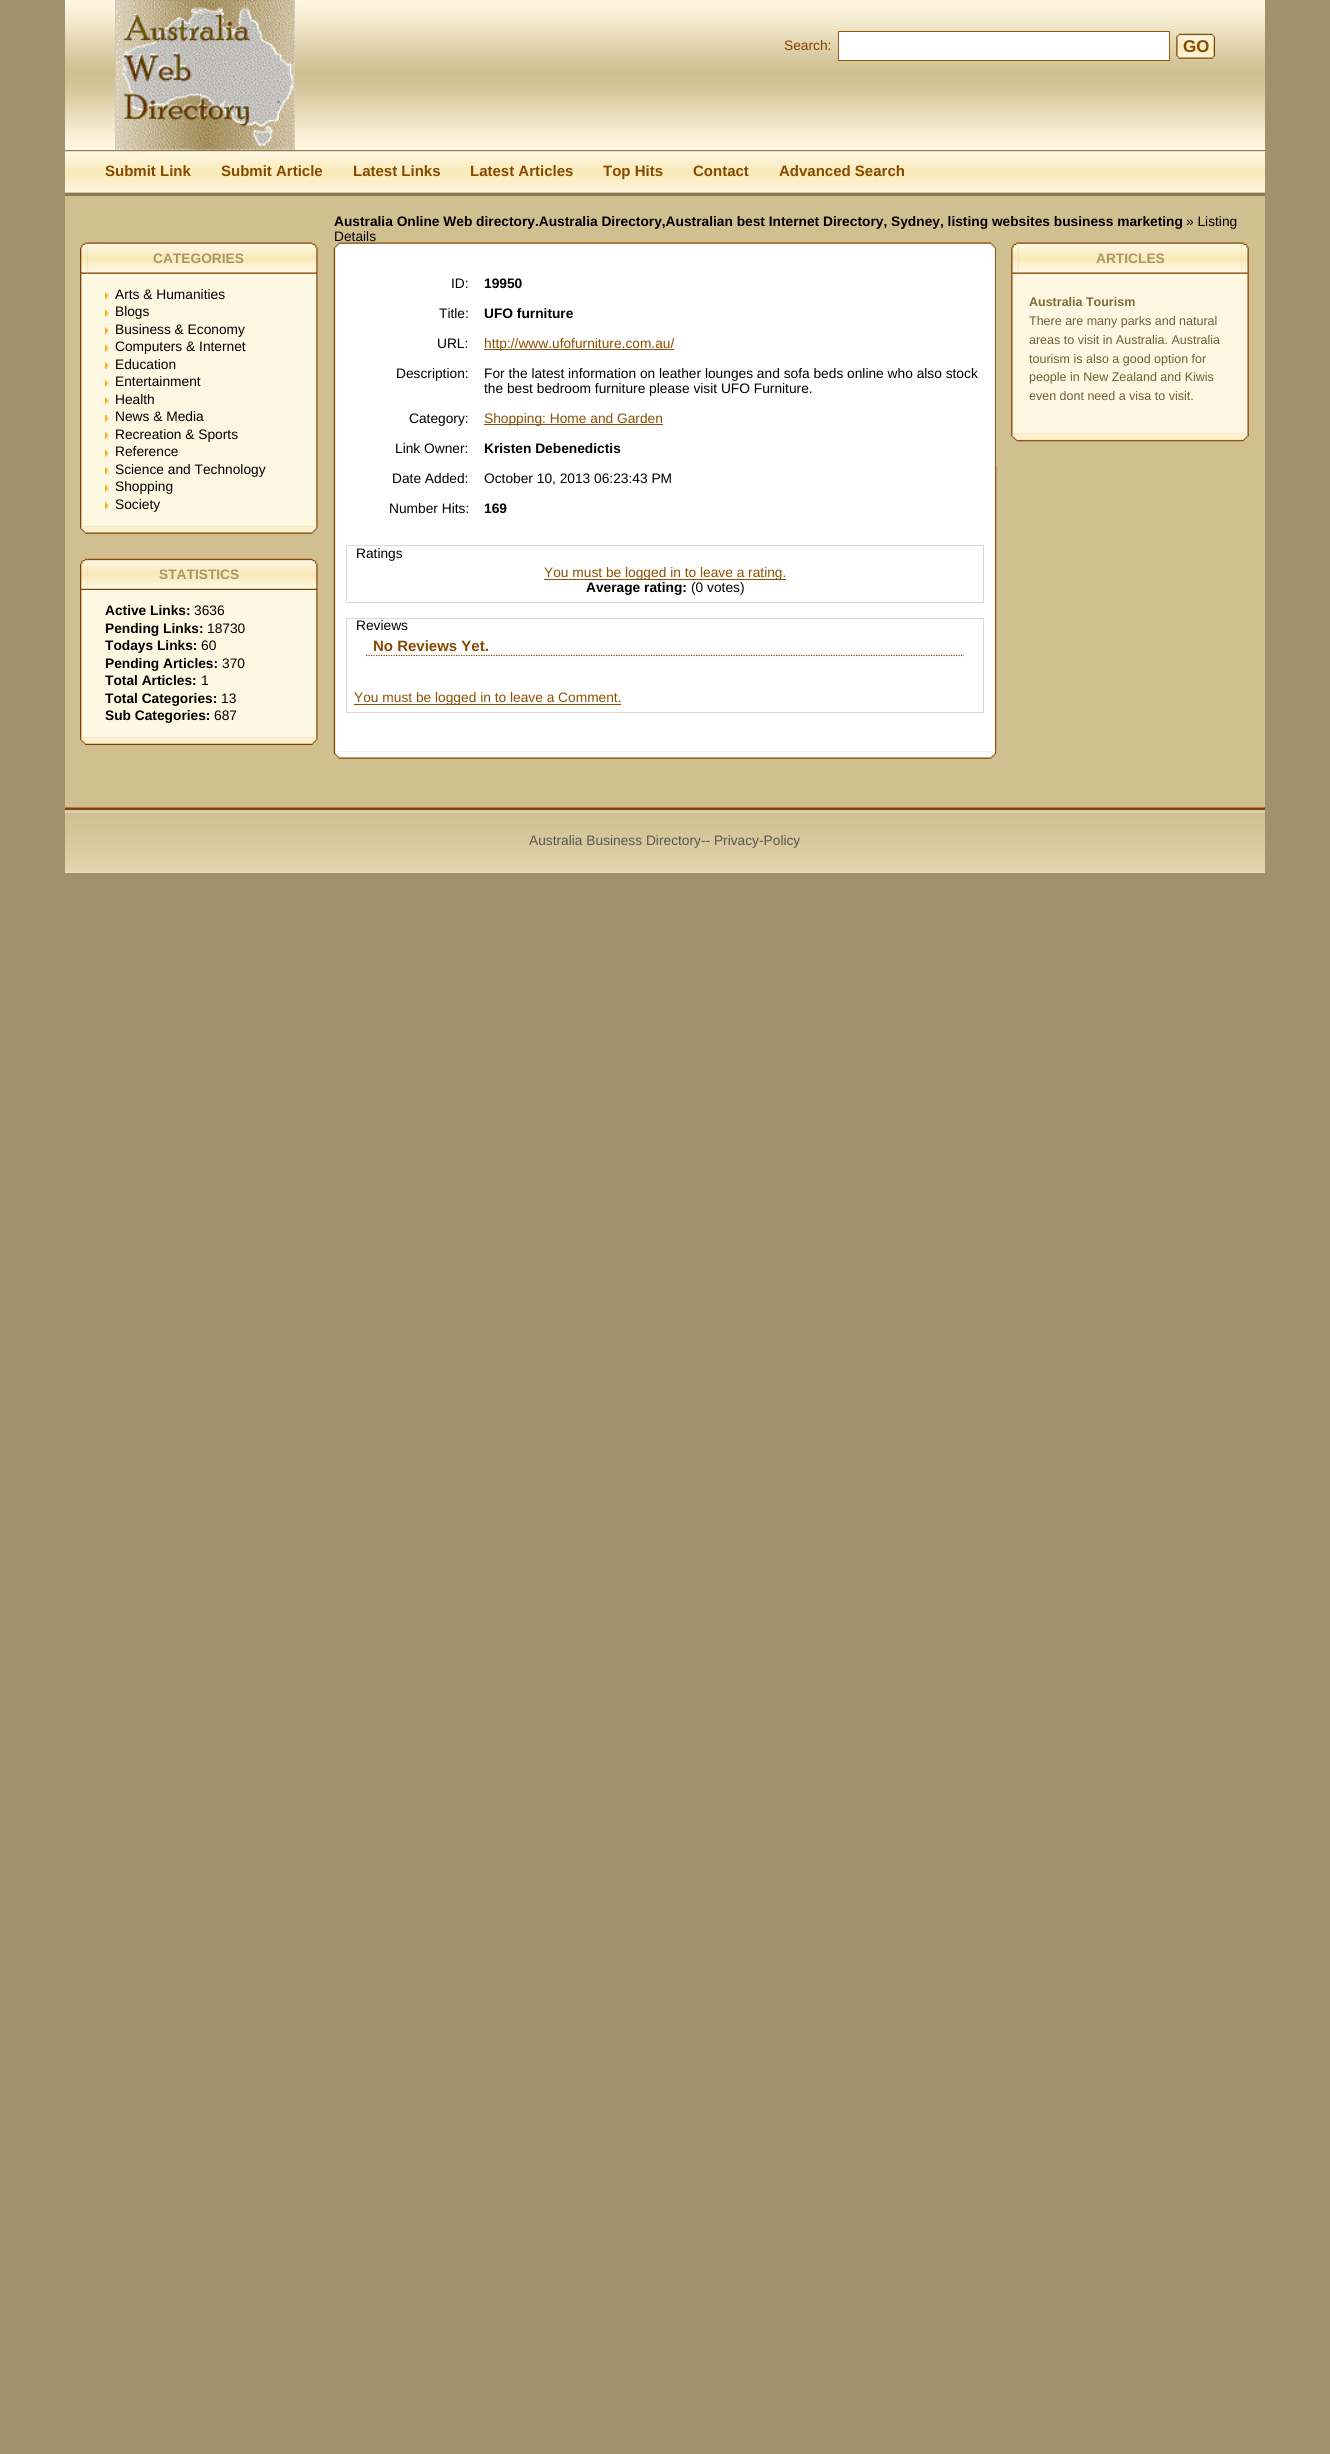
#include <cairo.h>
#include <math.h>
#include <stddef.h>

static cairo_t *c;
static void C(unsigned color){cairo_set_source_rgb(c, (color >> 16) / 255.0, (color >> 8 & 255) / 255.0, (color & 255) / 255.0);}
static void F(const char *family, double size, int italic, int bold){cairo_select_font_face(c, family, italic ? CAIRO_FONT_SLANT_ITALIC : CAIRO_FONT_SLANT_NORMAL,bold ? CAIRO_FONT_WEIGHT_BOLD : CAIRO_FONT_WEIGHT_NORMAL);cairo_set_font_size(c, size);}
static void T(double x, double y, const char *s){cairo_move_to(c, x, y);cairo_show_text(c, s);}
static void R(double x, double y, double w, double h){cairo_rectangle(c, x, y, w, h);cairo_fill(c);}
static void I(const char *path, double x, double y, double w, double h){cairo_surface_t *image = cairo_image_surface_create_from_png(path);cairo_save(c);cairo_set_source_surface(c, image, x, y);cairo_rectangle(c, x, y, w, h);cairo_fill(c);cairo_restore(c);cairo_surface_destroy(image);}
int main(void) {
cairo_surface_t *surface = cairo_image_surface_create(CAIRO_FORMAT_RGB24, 1330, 2454);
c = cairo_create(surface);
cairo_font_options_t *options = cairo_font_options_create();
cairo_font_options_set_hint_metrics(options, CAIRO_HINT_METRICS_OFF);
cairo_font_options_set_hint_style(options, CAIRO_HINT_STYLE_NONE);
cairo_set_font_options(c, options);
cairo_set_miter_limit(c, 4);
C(0x9f926c);
cairo_paint(c);
I("1.png",65,0,1200,150);
I("2.png",115,0,180,150);
F("Liberation Sans",13.75,0,0);
C(0x804000);
T(784,50,"Search:");
C(0xffffff);
cairo_rectangle(c,838.5,31.5,331,29);
cairo_fill_preserve(c);
C(0x975b10);
cairo_set_line_width(c,1);
cairo_stroke(c);
I("3.png",1176,33,7,26);
I("4.png",1182,33,27,26);
F("Liberation Sans",17,0,1);
C(0x854900);
T(1183,52,"GO");
I("5.png",1208,33,7,26);
I("6.png",65,151,1200,42);
C(0x897b52);
R(65,150,1200,1);
F("Liberation Sans",15,0,1);
C(0x854900);
T(105,176,"Submit Link");
T(221,176,"Submit Article");
T(353,176,"Latest Links");
T(470,176,"Latest Articles");
T(603,176,"Top Hits");
T(693,176,"Contact");
T(779,176,"Advanced Search");
C(0xd0c090);
R(65,196,1200,612);
C(0x897b52);
R(65,193,1200,3);
F("Liberation Sans",13.75,0,1);
C(0x000000);
T(334,226,"Australia Online Web directory.Australia Directory,Australian best Internet Directory, Sydney, listing websites business marketing");
F("Liberation Sans",13.75,0,0);
T(1186,226,"» Listing");
T(334,241,"Details");
I("10.png",80,273,238,254);
I("7.png",80,242,8,32);
I("8.png",87,242,223,32);
F("Liberation Sans",13.75,0,1);
C(0xa69768);
T(153,263,"CATEGORIES");
I("9.png",310,242,8,32);
I("11.png",105,292,4,8);
F("Liberation Sans",13.75,0,0);
C(0x000000);
T(115,299,"Arts & Humanities");
I("12.png",105,310,4,8);
T(115,316,"Blogs");
I("13.png",105,327,4,8);
T(115,334,"Business & Economy");
I("12.png",105,345,4,8);
T(115,351,"Computers & Internet");
I("13.png",105,362,4,8);
T(115,369,"Education");
I("12.png",105,380,4,8);
T(115,386,"Entertainment");
I("13.png",105,397,4,8);
T(115,404,"Health");
I("12.png",105,415,4,8);
T(115,421,"News & Media");
I("13.png",105,432,4,8);
T(115,439,"Recreation & Sports");
I("12.png",105,450,4,8);
T(115,456,"Reference");
I("13.png",105,467,4,8);
T(115,474,"Science and Technology");
I("12.png",105,485,4,8);
T(115,491,"Shopping");
I("13.png",105,502,4,8);
T(115,509,"Society");
I("14.png",80,526,238,8);
I("15.png",80,558,8,32);
I("16.png",87,558,223,32);
F("Liberation Sans",13.75,0,1);
C(0xa69768);
T(159,579,"STATISTICS");
I("17.png",310,558,8,32);
I("18.png",80,590,238,148);
C(0x000000);
T(105,615,"Active Links:");
F("Liberation Sans",13.75,0,0);
T(194,615,"3636");
F("Liberation Sans",13.75,0,1);
T(105,633,"Pending Links:");
F("Liberation Sans",13.75,0,0);
T(207,633,"18730");
F("Liberation Sans",13.75,0,1);
T(105,650,"Todays Links:");
F("Liberation Sans",13.75,0,0);
T(201,650,"60");
F("Liberation Sans",13.75,0,1);
T(105,668,"Pending Articles:");
F("Liberation Sans",13.75,0,0);
T(222,668,"370");
F("Liberation Sans",13.75,0,1);
T(105,685,"Total Articles:");
F("Liberation Sans",13.75,0,0);
T(201,685,"1");
F("Liberation Sans",13.75,0,1);
T(105,703,"Total Categories:");
F("Liberation Sans",13.75,0,0);
T(221,703,"13");
F("Liberation Sans",13.75,0,1);
T(105,720,"Sub Categories:");
F("Liberation Sans",13.75,0,0);
T(214,720,"687");
I("19.png",80,737,238,8);
I("20.png",333,242,664,8);
I("21.png",333,250,664,502);
T(451,288,"ID:");
F("Liberation Sans",13.75,0,1);
T(484,288,"19950");
F("Liberation Sans",13.75,0,0);
T(439,318,"Title:");
F("Liberation Sans",13.75,0,1);
T(484,318,"UFO furniture");
F("Liberation Sans",13.75,0,0);
T(437,348,"URL:");
C(0x8c4e00);
R(484,349,190,1);
T(484,348,"http://www.ufofurniture.com.au/");
C(0x000000);
T(396,378,"Description:");
T(484,378,"For the latest information on leather lounges and sofa beds online who also stock");
T(484,393,"the best bedroom furniture please visit UFO Furniture.");
T(409,423,"Category:");
C(0x8c4e00);
R(484,424,179,1);
T(484,423,"Shopping: Home and Garden");
C(0x000000);
T(395,453,"Link Owner:");
F("Liberation Sans",13.75,0,1);
T(484,453,"Kristen Debenedictis");
F("Liberation Sans",13.75,0,0);
T(392,483,"Date Added:");
T(484,483,"October 10, 2013 06:23:43 PM");
T(389,513,"Number Hits:");
F("Liberation Sans",13.75,0,1);
T(484,513,"169");
cairo_rectangle(c,346.5,545.5,637,57);
C(0xd9d9d9);
cairo_stroke(c);
F("Liberation Sans",13.75,0,0);
C(0x000000);
T(356,558,"Ratings");
C(0x8c4e00);
R(544,579,242,1);
T(544,577,"You must be logged in to leave a rating.");
F("Liberation Sans",13.75,0,1);
C(0x000000);
T(586,592,"Average rating:");
F("Liberation Sans",13.75,0,0);
T(691,592,"(0 votes)");
cairo_rectangle(c,346.5,618.5,637,94);
C(0xd9d9d9);
cairo_stroke(c);
C(0x000000);
T(356,630,"Reviews");
cairo_new_path(c);
cairo_move_to(c,366,655.5);
cairo_line_to(c,964,655.5);
C(0x804700);
cairo_set_line_width(c,1.2);
cairo_set_dash(c,(double[]){1.25,1.25},2,0);
cairo_stroke(c);
F("Liberation Sans",15,0,1);
C(0x854900);
T(373,651,"No Reviews Yet.");
C(0x8c4e00);
R(354,704,267,1);
F("Liberation Sans",13.75,0,0);
T(354,702,"You must be logged in to leave a Comment.");
I("22.png",333,751,664,8);
C(0xd0c090);
R(996,247,1,219);
I("26.png",1011,273,238,161);
I("23.png",1011,242,8,32);
I("24.png",1018,242,224,32);
F("Liberation Sans",13.75,0,1);
C(0xa69768);
T(1096,263,"ARTICLES");
I("25.png",1241,242,8,32);
F("Liberation Sans",12.5,0,1);
C(0x7c6b37);
T(1029,306,"Australia Tourism");
F("Liberation Sans",12.5,0,0);
C(0x6e5f33);
T(1029,325,"There are many parks and natural");
T(1029,344,"areas to visit in Australia. Australia");
T(1029,363,"tourism is also a good option for");
T(1029,381,"people in New Zealand and Kiwis");
T(1029,400,"even dont need a visa to visit.");
I("27.png",1011,433,238,9);
C(0xfaeaba);
R(65,872,1200,1);
I("28.png",65,807,1200,66);
F("Liberation Sans",13.75,0,0);
C(0x555555);
T(529,845,"Australia Business Directory-- Privacy-Policy");
cairo_surface_write_to_png(surface, "o.png");
cairo_font_options_destroy(options);
cairo_destroy(c);
cairo_surface_destroy(surface);
return 0;
}
